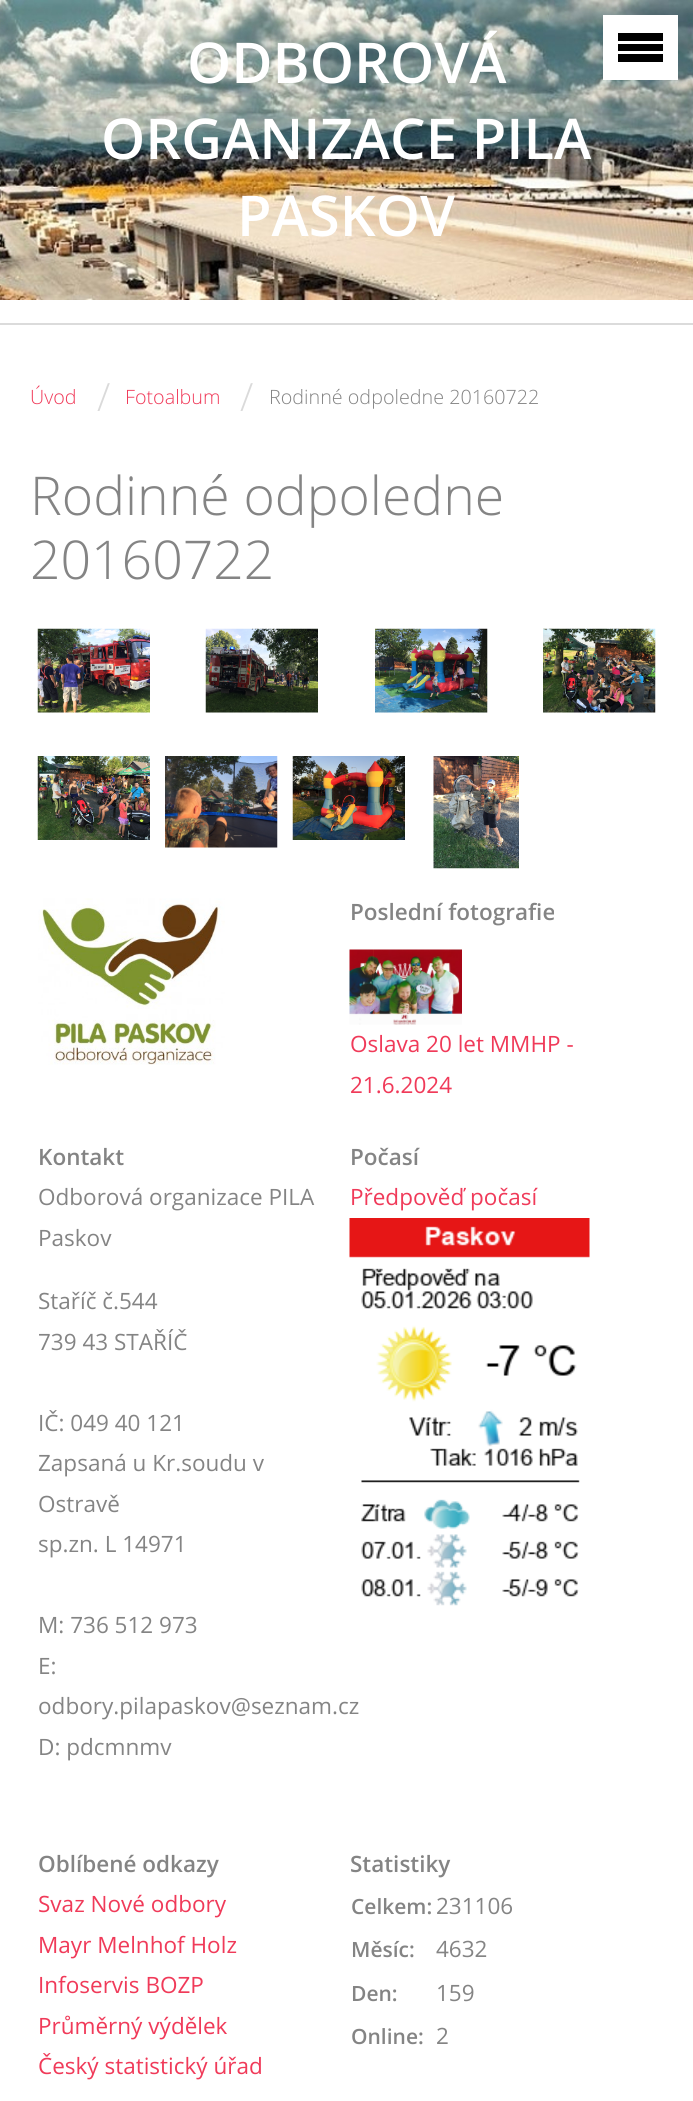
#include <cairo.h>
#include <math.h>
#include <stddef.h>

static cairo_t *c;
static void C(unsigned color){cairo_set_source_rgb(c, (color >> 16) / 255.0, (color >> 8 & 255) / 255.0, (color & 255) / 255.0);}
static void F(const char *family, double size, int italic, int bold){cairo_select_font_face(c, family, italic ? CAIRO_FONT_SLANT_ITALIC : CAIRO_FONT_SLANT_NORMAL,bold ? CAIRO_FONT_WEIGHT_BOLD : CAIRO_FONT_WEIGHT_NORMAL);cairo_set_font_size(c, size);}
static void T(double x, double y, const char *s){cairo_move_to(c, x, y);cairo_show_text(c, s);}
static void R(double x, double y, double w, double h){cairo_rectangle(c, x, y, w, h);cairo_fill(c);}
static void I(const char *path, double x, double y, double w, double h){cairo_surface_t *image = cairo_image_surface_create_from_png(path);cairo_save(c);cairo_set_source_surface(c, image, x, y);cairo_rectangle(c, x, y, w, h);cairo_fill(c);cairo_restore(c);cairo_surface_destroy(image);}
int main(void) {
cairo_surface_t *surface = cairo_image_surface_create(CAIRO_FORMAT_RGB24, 693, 2101);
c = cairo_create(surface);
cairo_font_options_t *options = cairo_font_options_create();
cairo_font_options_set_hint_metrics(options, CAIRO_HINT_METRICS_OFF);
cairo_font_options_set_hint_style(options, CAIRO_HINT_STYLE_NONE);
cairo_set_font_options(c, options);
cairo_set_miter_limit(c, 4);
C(0xffffff);
cairo_paint(c);
I("1.png",0,0,693,300);
F("Open Sans SemiBold",56.25,0,0);
C(0xffffff);
T(187,83,"ODBOROVÁ");
T(101,159,"ORGANIZACE PILA");
T(237,236,"PASKOV");
R(603,15,75,65);
C(0x000000);
R(618,33,45,8);
R(618,44,45,7);
R(618,54,45,8);
C(0xdbdbdb);
R(0,323,693,2);
F("Open Sans Light",19.75,0,0);
C(0xf03a59);
T(30,404,"Úvod");
F("Open Sans Light",39,0,0);
C(0xdadada);
T(97,411,"/");
F("Open Sans Light",19.75,0,0);
C(0xf03a59);
T(125,404,"Fotoalbum");
F("Open Sans Light",39,0,0);
C(0xdadada);
T(240,411,"/");
F("Open Sans Light",19.75,0,0);
C(0x848484);
T(269,404,"Rodinné odpoledne 20160722");
F("Open Sans Light",53.5,0,0);
T(30,515,"Rodinné odpoledne");
T(30,579,"20160722");
I("2.png",37,628,113,85);
I("3.png",205,628,113,85);
I("4.png",375,628,113,85);
I("5.png",543,628,113,85);
I("6.png",37,756,113,84);
I("7.png",165,756,113,92);
I("8.png",292,756,113,84);
I("9.png",433,756,86,113);
I("10.png",38,898,187,167);
F("Open Sans SemiBold",22.5,0,0);
T(350,920,"Poslední fotografie");
I("11.png",349,949,113,76);
F("Open Sans",22.5,0,0);
C(0xf03a59);
T(350,1052,"Oslava 20 let MMHP -");
T(350,1093,"21.6.2024");
F("Open Sans SemiBold",22.5,0,0);
C(0x848484);
T(38,1165,"Kontakt");
F("Open Sans",22.5,0,0);
T(38,1205,"Odborová organizace PILA");
T(38,1246,"Paskov");
T(38,1309,"Staříč č.544");
T(38,1350,"739 43 STAŘÍČ");
T(38,1431,"IČ: 049 40 121");
T(38,1471,"Zapsaná u Kr.soudu v");
T(38,1512,"Ostravě");
T(38,1552,"sp.zn. L 14971");
T(38,1633,"M: 736 512 973");
T(38,1674,"E:");
T(38,1714,"odbory.pilapaskov@seznam.cz");
T(38,1755,"D: pdcmnmv");
F("Open Sans SemiBold",22.5,0,0);
T(350,1165,"Počasí");
F("Open Sans",22.5,0,0);
C(0xf03a59);
T(350,1205,"Předpověď počasí");
I("12.png",349,1218,241,388);
F("Open Sans SemiBold",22.5,0,0);
C(0x848484);
T(38,1872,"Oblíbené odkazy");
F("Open Sans",22.5,0,0);
C(0xf03a59);
T(38,1912,"Svaz Nové odbory");
T(38,1953,"Mayr Melnhof Holz");
T(38,1993,"Infoservis BOZP");
T(38,2034,"Průměrný výdělek");
T(38,2074,"Český statistický úřad");
F("Open Sans SemiBold",22.5,0,0);
C(0x848484);
T(350,1872,"Statistiky");
F("Open Sans SemiBold",21,0,0);
T(351,1914,"Celkem:");
F("Open Sans",22.5,0,0);
T(436,1914,"231106");
F("Open Sans SemiBold",21,0,0);
T(351,1957,"Měsíc:");
F("Open Sans",22.5,0,0);
T(436,1957,"4632");
F("Open Sans SemiBold",21,0,0);
T(351,2001,"Den:");
F("Open Sans",22.5,0,0);
T(436,2001,"159");
F("Open Sans SemiBold",21,0,0);
T(351,2044,"Online:");
F("Open Sans",22.5,0,0);
T(436,2044,"2");
cairo_surface_write_to_png(surface, "o.png");
cairo_font_options_destroy(options);
cairo_destroy(c);
cairo_surface_destroy(surface);
return 0;
}
